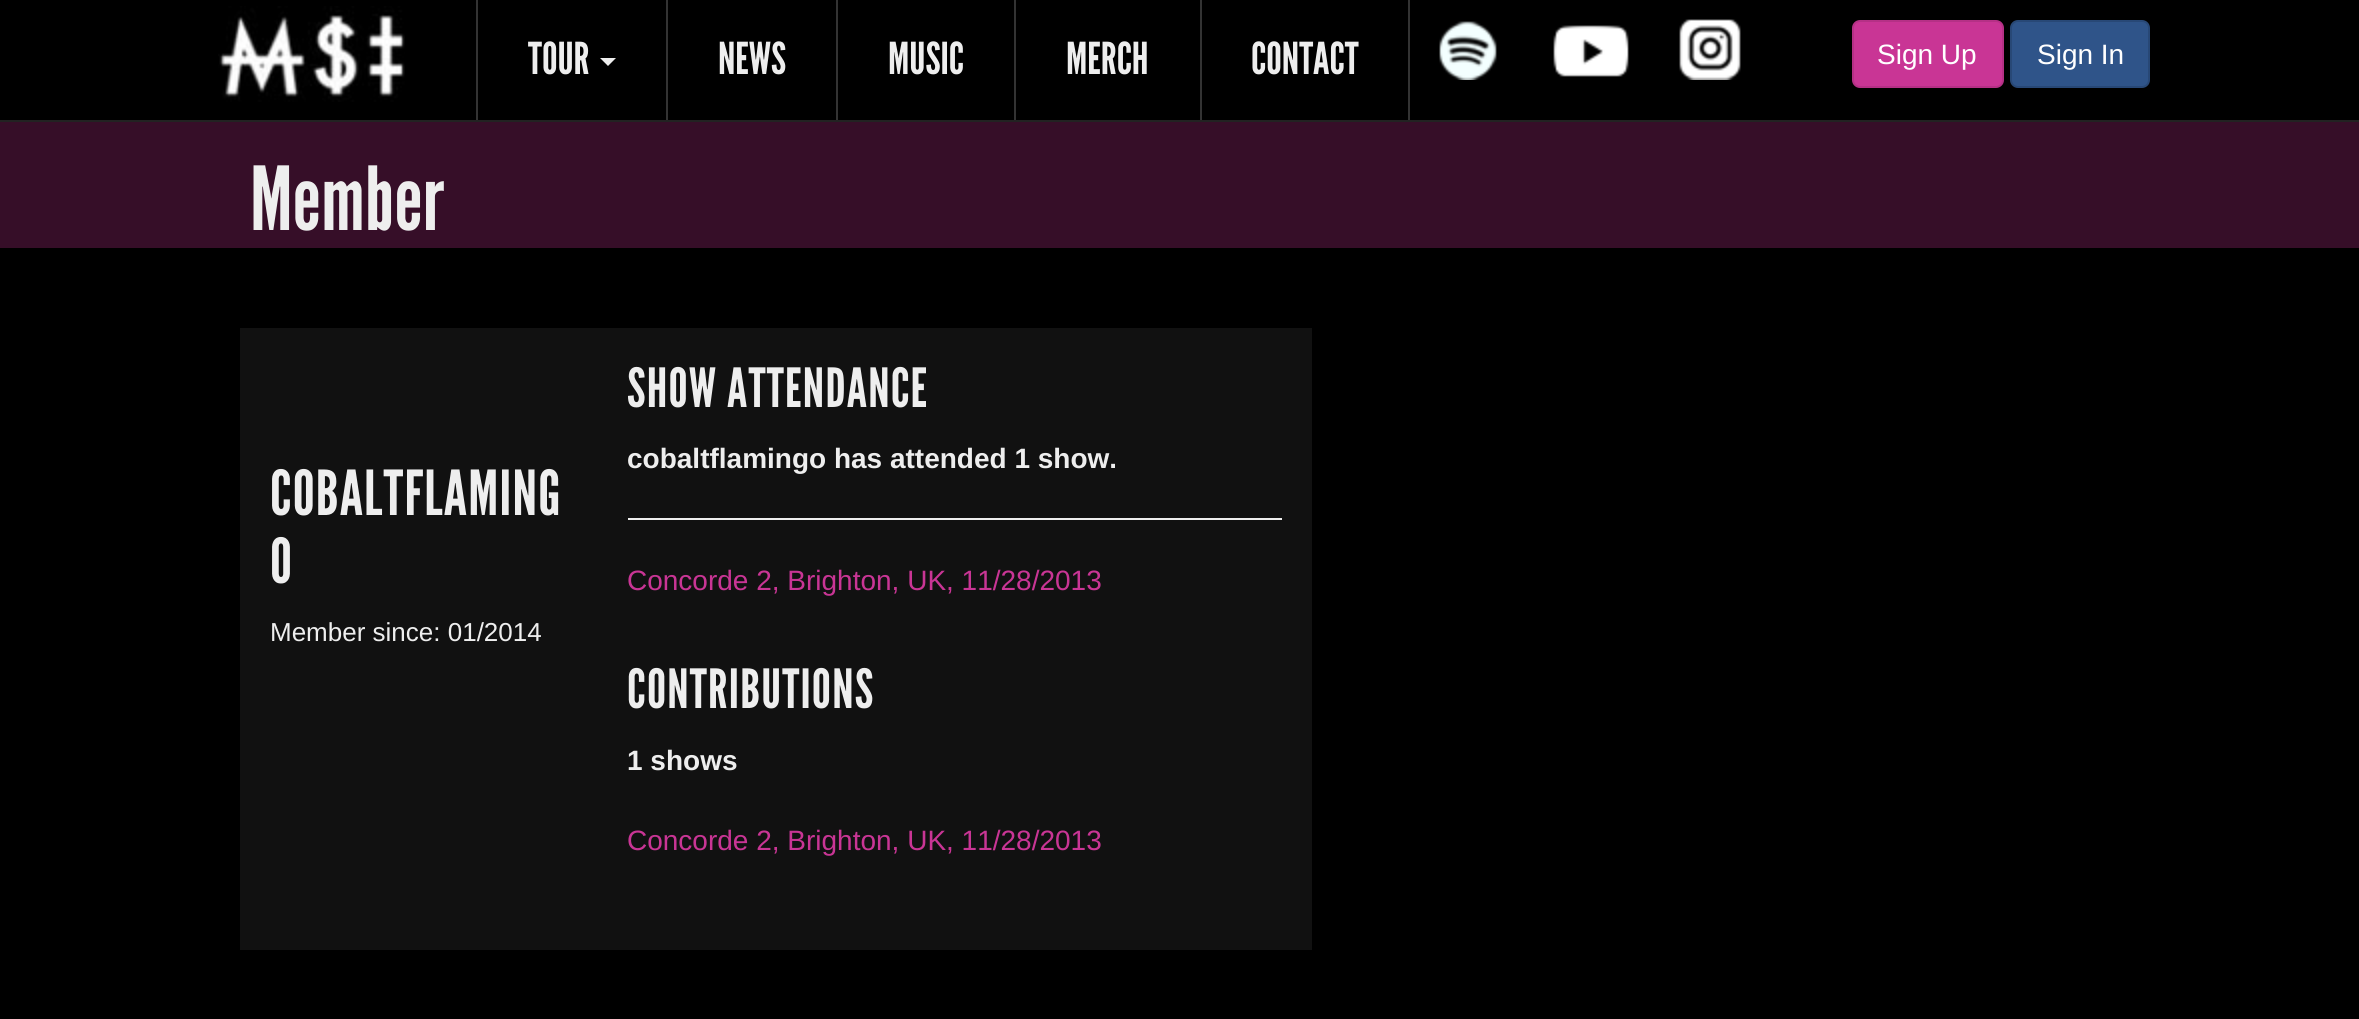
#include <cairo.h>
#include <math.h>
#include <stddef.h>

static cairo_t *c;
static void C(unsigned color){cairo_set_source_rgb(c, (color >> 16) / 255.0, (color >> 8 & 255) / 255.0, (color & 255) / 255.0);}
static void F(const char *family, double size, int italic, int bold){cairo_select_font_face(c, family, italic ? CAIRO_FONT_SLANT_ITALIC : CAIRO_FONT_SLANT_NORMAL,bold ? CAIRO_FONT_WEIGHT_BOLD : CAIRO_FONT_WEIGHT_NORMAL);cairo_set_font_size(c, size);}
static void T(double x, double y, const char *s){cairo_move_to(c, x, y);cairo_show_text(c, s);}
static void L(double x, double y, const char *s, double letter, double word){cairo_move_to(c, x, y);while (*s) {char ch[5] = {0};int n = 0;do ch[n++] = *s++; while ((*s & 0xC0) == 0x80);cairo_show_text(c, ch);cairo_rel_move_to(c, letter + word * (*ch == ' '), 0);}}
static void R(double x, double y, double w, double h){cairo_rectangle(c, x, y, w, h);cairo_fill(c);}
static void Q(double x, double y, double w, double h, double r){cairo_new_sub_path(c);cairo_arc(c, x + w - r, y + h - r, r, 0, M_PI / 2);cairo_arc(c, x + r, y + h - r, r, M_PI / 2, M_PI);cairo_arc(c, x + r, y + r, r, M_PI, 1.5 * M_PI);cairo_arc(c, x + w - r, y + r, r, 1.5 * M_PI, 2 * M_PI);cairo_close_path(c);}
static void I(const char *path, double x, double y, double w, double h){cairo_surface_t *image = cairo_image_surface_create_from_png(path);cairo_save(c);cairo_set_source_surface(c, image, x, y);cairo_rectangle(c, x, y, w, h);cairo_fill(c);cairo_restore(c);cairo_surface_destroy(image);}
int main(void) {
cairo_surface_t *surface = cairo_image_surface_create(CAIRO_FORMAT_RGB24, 2359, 1019);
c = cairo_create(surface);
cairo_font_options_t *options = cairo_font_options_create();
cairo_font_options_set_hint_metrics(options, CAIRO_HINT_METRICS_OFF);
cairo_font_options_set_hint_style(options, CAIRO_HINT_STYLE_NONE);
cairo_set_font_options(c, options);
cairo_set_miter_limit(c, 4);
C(0x000000);
cairo_paint(c);
C(0x222222);
R(0,120,2359,2);
I("1.png",218,6,187,96);
C(0x333333);
R(476,0,2,120);
R(666,0,2,120);
F("League Gothic",44,0,0);
C(0xeeeeee);
T(528,74,"TOUR");
cairo_new_path(c);
cairo_move_to(c,600,58);
cairo_line_to(c,616,58);
cairo_line_to(c,608,66);
cairo_close_path(c);
cairo_fill(c);
C(0x333333);
R(836,0,2,120);
C(0xeeeeee);
T(718,74,"NEWS");
C(0x333333);
R(1014,0,2,120);
C(0xeeeeee);
T(888,74,"MUSIC");
C(0x333333);
R(1200,0,2,120);
C(0xeeeeee);
T(1066,74,"MERCH");
C(0x333333);
R(1408,0,2,120);
C(0xeeeeee);
T(1251,74,"CONTACT");
I("2.png",1439,21,58,59);
I("3.png",1553,25,76,52);
I("4.png",1679,19,62,61);
C(0xc93595);
Q(1853,21,150,66,7);
cairo_fill_preserve(c);
C(0xb53086);
cairo_stroke(c);
F("Liberation Sans",28,0,0);
C(0xffffff);
T(1877,64,"Sign Up");
C(0x2f5489);
Q(2011,21,138,66,7);
cairo_fill_preserve(c);
C(0x284876);
cairo_stroke(c);
C(0xffffff);
T(2037,64,"Sign In");
C(0x360e28);
R(0,122,2359,126);
F("League Gothic",88,0,0);
C(0xeeeeee);
T(250,230,"Member");
C(0x111111);
R(240,328,1072,622);
F("League Gothic",62,0,0);
C(0xeeeeee);
L(270,515,"COBALTFLAMING",1.25,0);
L(270,583,"O",1.25,0);
F("Liberation Sans",26,0,0);
T(270,641,"Member since: 01/2014");
F("League Gothic",54,0,0);
L(627,407,"SHOW ATTENDANCE",1.25,0);
F("Liberation Sans",28,0,1);
T(627,468,"cobaltflamingo has attended 1 show.");
R(628,518,654,2);
F("Liberation Sans",28,0,0);
C(0xc93595);
T(627,590,"Concorde 2, Brighton, UK, 11/28/2013");
F("League Gothic",54,0,0);
C(0xeeeeee);
L(627,708,"CONTRIBUTIONS",1.25,0);
F("Liberation Sans",28,0,1);
T(627,770,"1 shows");
F("Liberation Sans",28,0,0);
C(0xc93595);
T(627,850,"Concorde 2, Brighton, UK, 11/28/2013");
cairo_surface_write_to_png(surface, "o.png");
cairo_font_options_destroy(options);
cairo_destroy(c);
cairo_surface_destroy(surface);
return 0;
}
